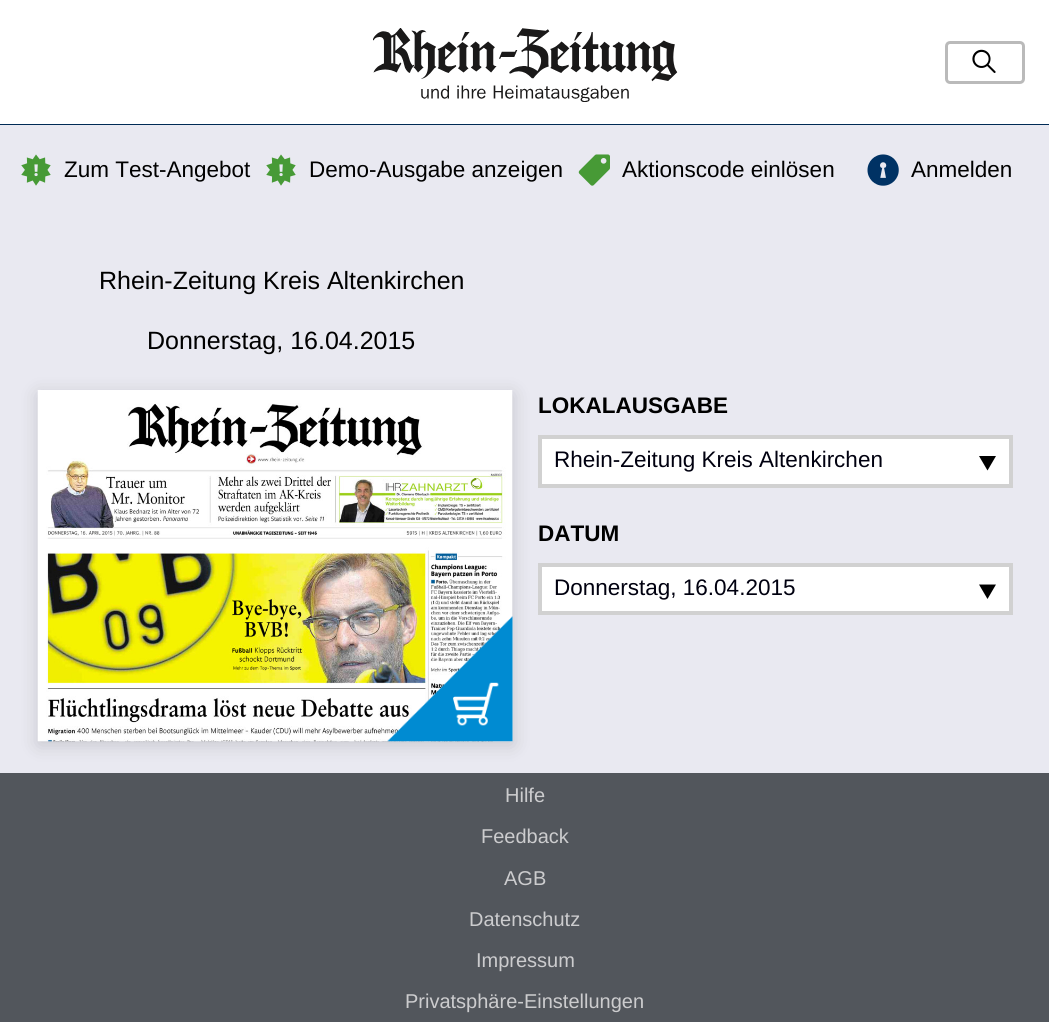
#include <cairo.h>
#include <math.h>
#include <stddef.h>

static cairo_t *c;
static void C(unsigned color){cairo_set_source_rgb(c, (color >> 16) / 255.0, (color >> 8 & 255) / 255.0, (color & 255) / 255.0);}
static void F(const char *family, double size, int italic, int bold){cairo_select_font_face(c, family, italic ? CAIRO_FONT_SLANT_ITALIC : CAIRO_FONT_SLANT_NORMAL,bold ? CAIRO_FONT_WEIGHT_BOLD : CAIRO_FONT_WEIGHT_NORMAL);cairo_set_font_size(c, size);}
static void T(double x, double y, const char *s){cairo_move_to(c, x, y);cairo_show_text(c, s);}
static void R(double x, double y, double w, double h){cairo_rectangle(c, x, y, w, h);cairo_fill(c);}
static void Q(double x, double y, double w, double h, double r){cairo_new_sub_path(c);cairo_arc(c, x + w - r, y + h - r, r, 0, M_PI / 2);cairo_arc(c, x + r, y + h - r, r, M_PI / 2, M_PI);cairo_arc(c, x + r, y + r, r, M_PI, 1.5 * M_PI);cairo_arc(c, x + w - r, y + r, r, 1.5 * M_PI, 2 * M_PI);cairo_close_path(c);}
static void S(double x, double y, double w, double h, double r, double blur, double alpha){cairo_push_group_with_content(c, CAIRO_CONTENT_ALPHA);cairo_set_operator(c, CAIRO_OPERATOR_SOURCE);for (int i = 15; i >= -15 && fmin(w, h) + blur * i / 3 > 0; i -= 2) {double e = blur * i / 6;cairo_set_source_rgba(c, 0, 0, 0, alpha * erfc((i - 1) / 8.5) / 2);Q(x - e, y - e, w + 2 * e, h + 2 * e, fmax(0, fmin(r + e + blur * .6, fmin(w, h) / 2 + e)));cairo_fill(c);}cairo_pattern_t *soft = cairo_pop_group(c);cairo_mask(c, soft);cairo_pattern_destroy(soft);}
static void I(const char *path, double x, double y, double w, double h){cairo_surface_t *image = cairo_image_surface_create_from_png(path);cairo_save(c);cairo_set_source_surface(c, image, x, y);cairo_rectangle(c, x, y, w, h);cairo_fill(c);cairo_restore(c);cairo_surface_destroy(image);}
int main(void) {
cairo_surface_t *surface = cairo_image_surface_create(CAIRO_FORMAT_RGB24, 1049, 1022);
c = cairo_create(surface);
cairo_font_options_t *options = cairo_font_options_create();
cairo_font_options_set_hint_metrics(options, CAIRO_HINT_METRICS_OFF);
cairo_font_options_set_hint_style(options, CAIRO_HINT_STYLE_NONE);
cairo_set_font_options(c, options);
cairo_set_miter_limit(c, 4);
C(0xe9e9f1);
cairo_paint(c);
C(0xffffff);
R(0,0,1049,124);
C(0x002b55);
R(0,124,1049,1);
I("1.png",373,28,305,74);
Q(946.5,42.5,77,40,3.5);
C(0xbababa);
cairo_set_line_width(c,3);
cairo_stroke(c);
I("2.png",972,49,24,24);
I("3.png",21,154,30,32);
F("Liberation Sans",22.5,0,0);
C(0x000000);
T(64,177,"Zum Test-Angebot");
I("3.png",266,154,30,32);
T(309,177,"Demo-Ausgabe anzeigen");
I("4.png",578,154,32,32);
T(622,177,"Aktionscode einlösen");
I("5.png",867,154,32,32);
T(911,177,"Anmelden");
F("Liberation Sans",25,0,0);
T(99,289,"Rhein-Zeitung Kreis Altenkirchen");
T(147,349,"Donnerstag, 16.04.2015");
C(0x52565c);
R(0,773,1049,249);
C(0x000000);
S(38,394,475,351,0,9.5,.15);
I("6.png",37,390,476,352);
I("7.png",387,616,126,126);
F("Liberation Sans",22.5,0,1);
C(0x000000);
T(538,413,"LOKALAUSGABE");
C(0xffffff);
cairo_rectangle(c,540,437,471,49);
cairo_fill_preserve(c);
C(0xd1d1d1);
cairo_set_line_width(c,4);
cairo_stroke(c);
F("Liberation Sans",22.5,0,0);
C(0x00000f);
T(554,467,"Rhein-Zeitung Kreis Altenkirchen");
C(0x000000);
cairo_new_path(c);
cairo_move_to(c,979,456);
cairo_line_to(c,996,456);
cairo_line_to(c,987.5,470.5);
cairo_close_path(c);
cairo_fill(c);
F("Liberation Sans",22.5,0,1);
T(538,541,"DATUM");
C(0xffffff);
cairo_rectangle(c,540,565,471,48);
cairo_fill_preserve(c);
C(0xd1d1d1);
cairo_stroke(c);
F("Liberation Sans",22.5,0,0);
C(0x00000f);
T(554,595,"Donnerstag, 16.04.2015");
C(0x000000);
cairo_new_path(c);
cairo_move_to(c,979,584.5);
cairo_line_to(c,996,584.5);
cairo_line_to(c,987.5,599);
cairo_close_path(c);
cairo_fill(c);
F("Liberation Sans",20,0,0);
C(0xccccce);
T(505,802,"Hilfe");
T(481,843,"Feedback");
T(504,885,"AGB");
T(469,926,"Datenschutz");
T(476,967,"Impressum");
T(405,1008,"Privatsphäre-Einstellungen");
cairo_surface_write_to_png(surface, "o.png");
cairo_font_options_destroy(options);
cairo_destroy(c);
cairo_surface_destroy(surface);
return 0;
}
